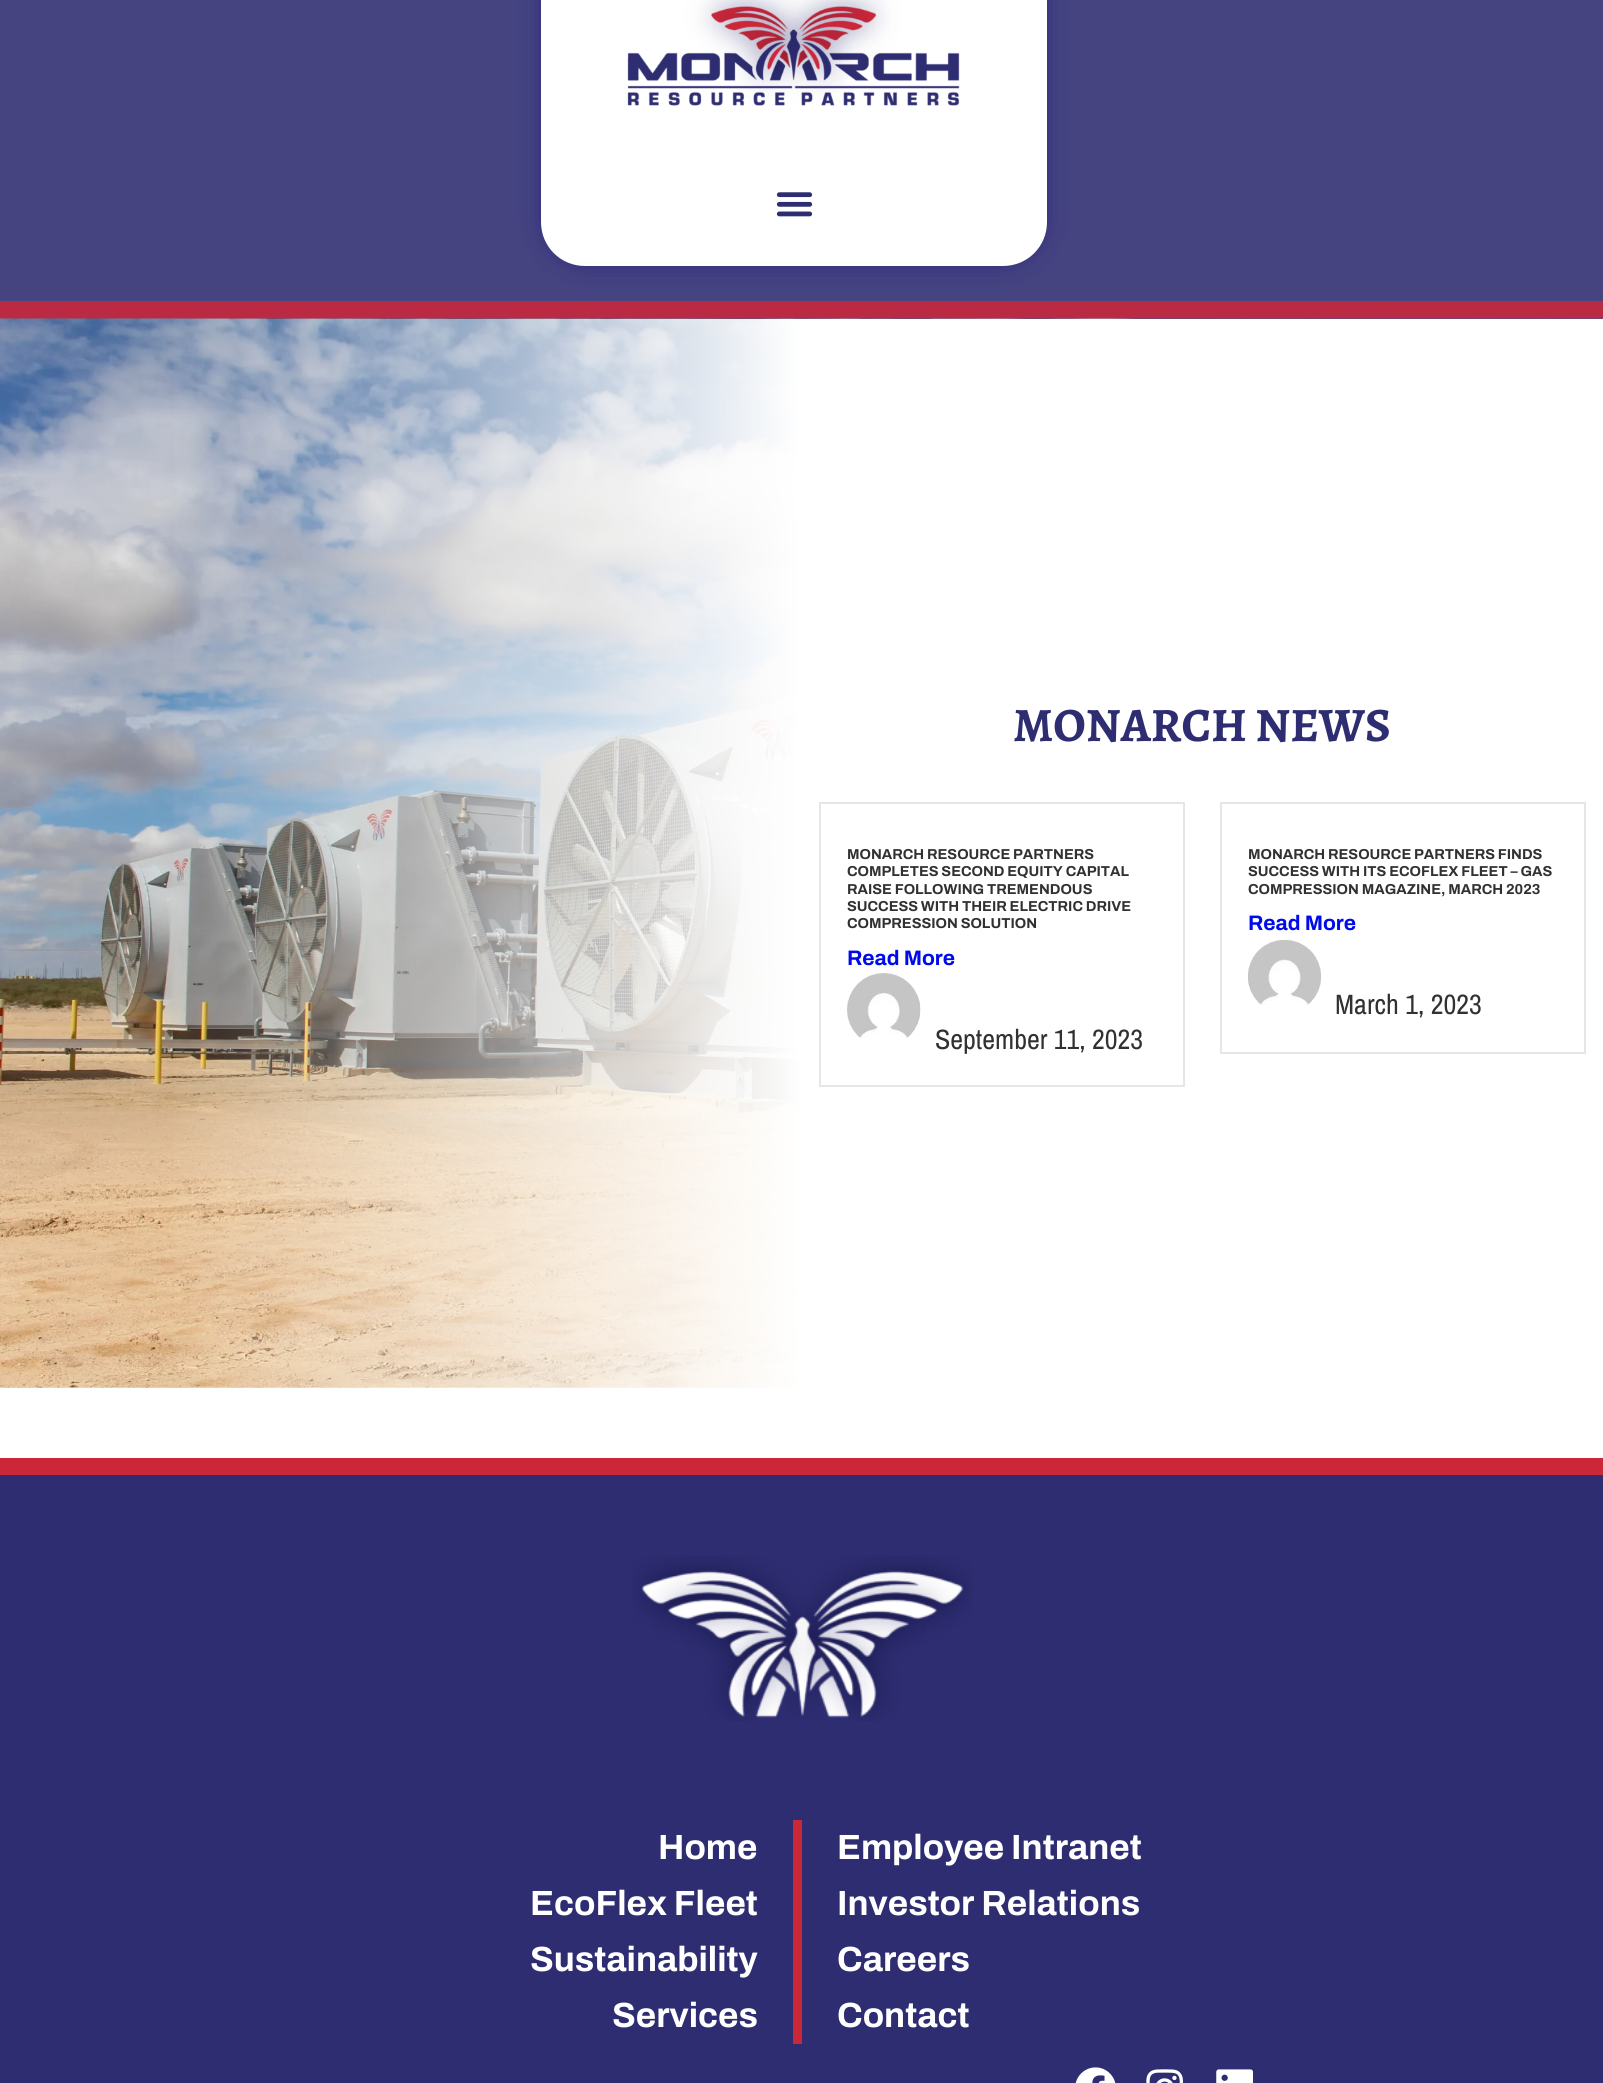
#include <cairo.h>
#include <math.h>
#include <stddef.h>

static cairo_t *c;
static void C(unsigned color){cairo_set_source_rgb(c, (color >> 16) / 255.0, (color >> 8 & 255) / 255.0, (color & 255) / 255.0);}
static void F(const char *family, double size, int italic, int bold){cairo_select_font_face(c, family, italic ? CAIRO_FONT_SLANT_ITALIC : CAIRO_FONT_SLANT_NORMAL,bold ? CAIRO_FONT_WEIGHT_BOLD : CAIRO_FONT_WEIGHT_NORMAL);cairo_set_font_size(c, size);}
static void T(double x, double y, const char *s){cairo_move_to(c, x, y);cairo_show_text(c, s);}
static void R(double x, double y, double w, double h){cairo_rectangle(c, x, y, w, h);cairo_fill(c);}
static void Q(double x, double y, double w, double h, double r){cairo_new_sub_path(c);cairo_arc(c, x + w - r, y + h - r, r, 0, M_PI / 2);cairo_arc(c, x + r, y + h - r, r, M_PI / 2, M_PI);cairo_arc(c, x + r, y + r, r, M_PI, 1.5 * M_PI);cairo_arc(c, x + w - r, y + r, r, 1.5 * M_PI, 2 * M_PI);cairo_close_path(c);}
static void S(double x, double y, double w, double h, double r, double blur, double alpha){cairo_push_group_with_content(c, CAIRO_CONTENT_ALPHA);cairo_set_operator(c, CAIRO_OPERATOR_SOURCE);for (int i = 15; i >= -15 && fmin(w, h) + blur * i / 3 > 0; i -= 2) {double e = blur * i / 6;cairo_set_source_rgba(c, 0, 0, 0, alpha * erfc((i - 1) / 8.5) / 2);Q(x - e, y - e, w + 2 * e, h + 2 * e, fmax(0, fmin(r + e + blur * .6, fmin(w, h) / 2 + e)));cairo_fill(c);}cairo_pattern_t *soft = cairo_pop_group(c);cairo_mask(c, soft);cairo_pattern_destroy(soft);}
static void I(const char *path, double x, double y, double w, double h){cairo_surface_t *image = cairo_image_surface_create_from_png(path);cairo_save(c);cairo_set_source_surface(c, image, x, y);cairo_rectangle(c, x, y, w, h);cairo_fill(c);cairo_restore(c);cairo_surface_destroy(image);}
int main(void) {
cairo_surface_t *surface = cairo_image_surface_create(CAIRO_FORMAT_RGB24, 1603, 2083);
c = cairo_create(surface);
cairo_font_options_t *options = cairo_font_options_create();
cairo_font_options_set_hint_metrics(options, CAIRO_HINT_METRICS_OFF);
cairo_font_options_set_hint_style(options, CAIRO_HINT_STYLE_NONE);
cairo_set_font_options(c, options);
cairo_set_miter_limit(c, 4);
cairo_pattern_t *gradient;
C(0xffffff);
cairo_paint(c);
cairo_set_source_rgba(c,0.18,0.176,0.447,0.89);
R(0,0,1603,301);
C(0xbb2a43);
R(0,301,1603,18);
C(0x110371);
S(544,-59,499,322,40,12,.5);
C(0xffffff);
cairo_new_path(c);
cairo_move_to(c,541,-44);
cairo_line_to(c,1047,-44);
cairo_line_to(c,1047,222);
cairo_curve_to(c,1047,246.5,1027.5,266,1003,266);
cairo_line_to(c,585,266);
cairo_curve_to(c,560.5,266,541,246.5,541,222);
cairo_close_path(c);
cairo_fill(c);
I("1.png",627,0,333,106);
I("2.png",776,192,37,25);
I("3.png",0,318,1603,1070);
gradient = cairo_pattern_create_linear(1603,888,0,888);
cairo_pattern_add_color_stop_rgba(gradient,.5,1,1,1,1);
cairo_pattern_add_color_stop_rgba(gradient,.9,1,1,1,0);
cairo_set_source(c,gradient);
cairo_pattern_destroy(gradient);
R(174,319,1429,1069);
F("Alegreya SC",48,0,1);
C(0x2e2d72);
T(1013,741,"MONARCH NEWS");
cairo_rectangle(c,820,803,364,283);
C(0xe6e6e6);
cairo_stroke(c);
F("Archivo",14.4,0,1);
C(0x303133);
T(847,859,"MONARCH RESOURCE PARTNERS");
T(847,876,"COMPLETES SECOND EQUITY CAPITAL");
T(847,894,"RAISE FOLLOWING TREMENDOUS");
T(847,911,"SUCCESS WITH THEIR ELECTRIC DRIVE");
T(847,928,"COMPRESSION SOLUTION");
F("Archivo",21,0,1);
C(0x000bec);
T(847,965,"Read More");
I("4.png",847,973,74,66);
F("Archivo Narrow",28,0,0);
C(0x303133);
T(935,1049,"September 11, 2023");
cairo_rectangle(c,1221,803,364,250);
C(0xe6e6e6);
cairo_stroke(c);
F("Archivo",14.4,0,1);
C(0x303133);
T(1248,859,"MONARCH RESOURCE PARTNERS FINDS");
T(1248,876,"SUCCESS WITH ITS ECOFLEX FLEET – GAS");
T(1248,894,"COMPRESSION MAGAZINE, MARCH 2023");
F("Archivo",21,0,1);
C(0x000bec);
T(1248,930,"Read More");
I("5.png",1248,940,73,65);
F("Archivo Narrow",28,0,0);
C(0x303133);
T(1335,1014,"March 1, 2023");
C(0x2e2d72);
R(0,1475,1603,608);
C(0xcb2738);
R(0,1458,1603,17);
I("6.png",632,1556,340,165);
R(793,1820,9,224);
F("Archivo",35,0,1);
C(0xffffff);
T(658,1859,"Home");
T(530,1915,"EcoFlex Fleet");
T(530,1971,"Sustainability");
T(612,2027,"Services");
T(837,1859,"Employee Intranet");
T(837,1915,"Investor Relations");
T(837,1971,"Careers");
T(837,2027,"Contact");
I("7.png",1075,2067,41,16);
I("8.png",1146,2069,37,14);
I("9.png",1216,2069,37,14);
cairo_surface_write_to_png(surface, "o.png");
cairo_font_options_destroy(options);
cairo_destroy(c);
cairo_surface_destroy(surface);
return 0;
}
